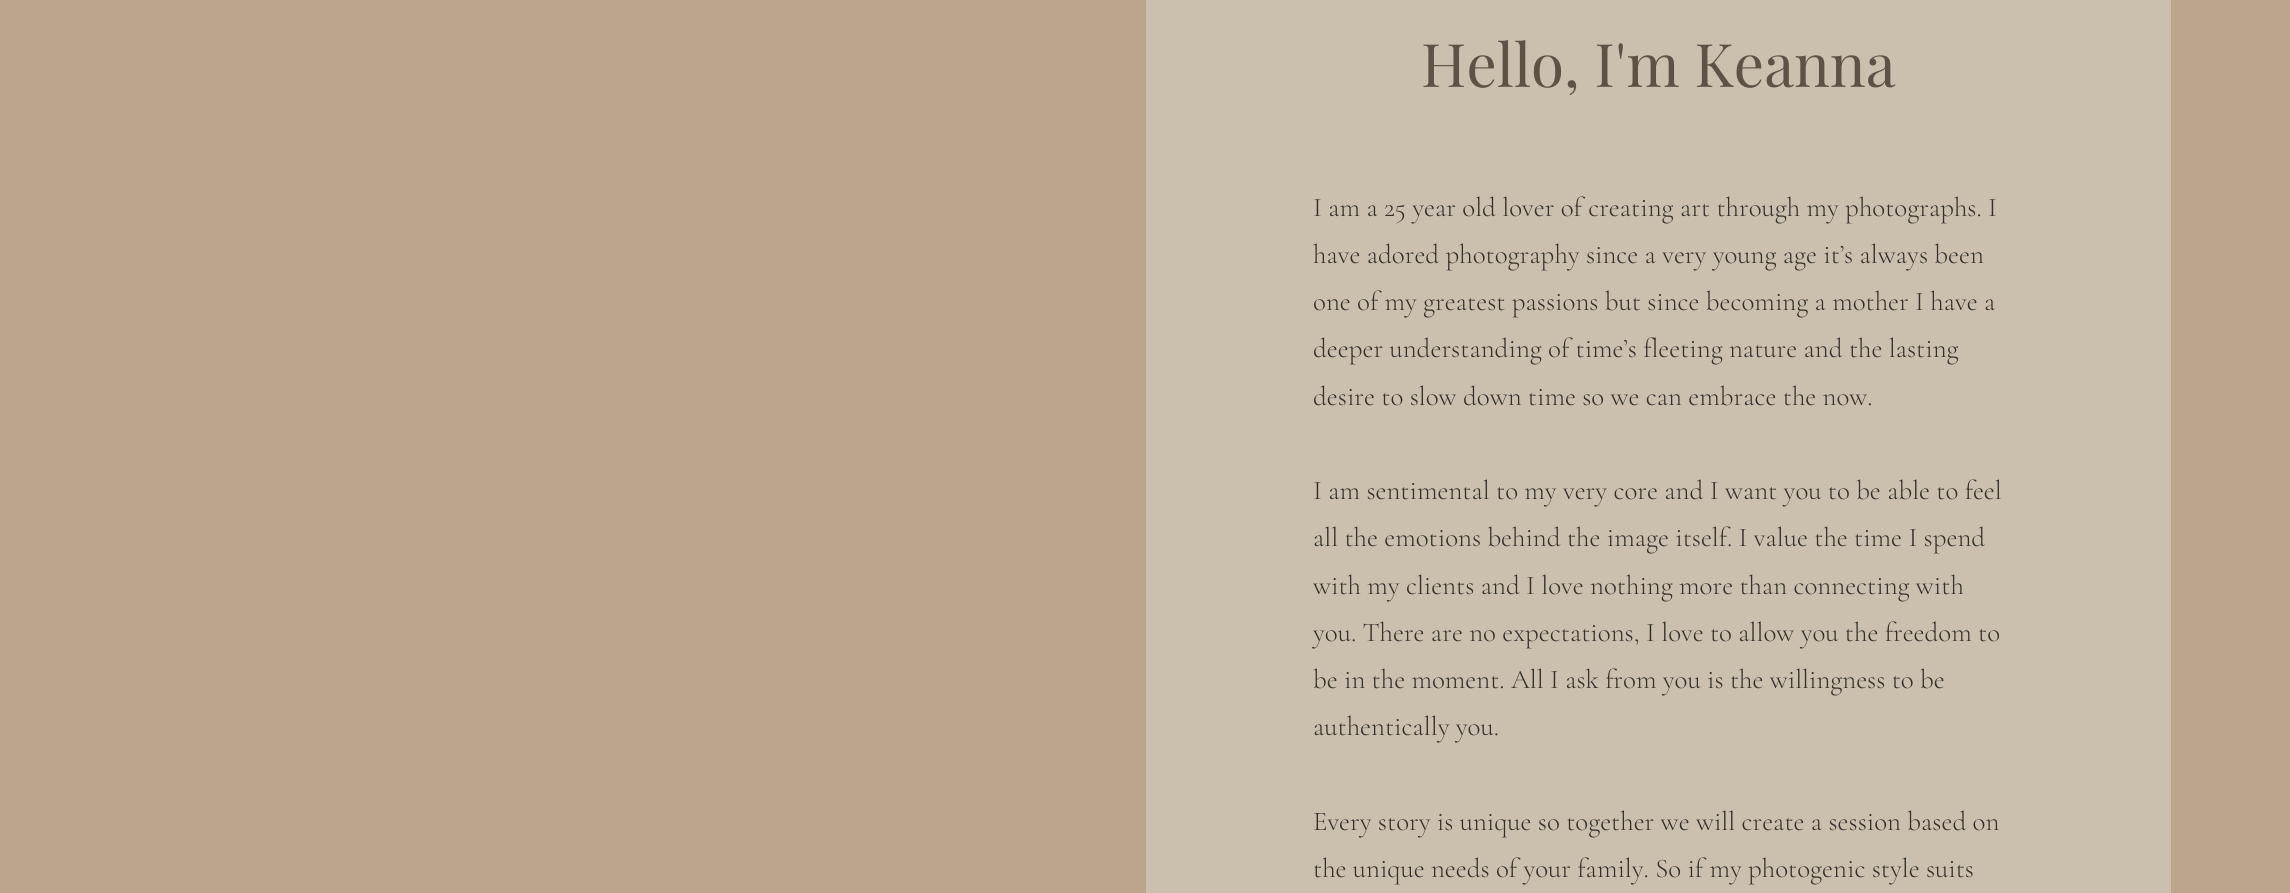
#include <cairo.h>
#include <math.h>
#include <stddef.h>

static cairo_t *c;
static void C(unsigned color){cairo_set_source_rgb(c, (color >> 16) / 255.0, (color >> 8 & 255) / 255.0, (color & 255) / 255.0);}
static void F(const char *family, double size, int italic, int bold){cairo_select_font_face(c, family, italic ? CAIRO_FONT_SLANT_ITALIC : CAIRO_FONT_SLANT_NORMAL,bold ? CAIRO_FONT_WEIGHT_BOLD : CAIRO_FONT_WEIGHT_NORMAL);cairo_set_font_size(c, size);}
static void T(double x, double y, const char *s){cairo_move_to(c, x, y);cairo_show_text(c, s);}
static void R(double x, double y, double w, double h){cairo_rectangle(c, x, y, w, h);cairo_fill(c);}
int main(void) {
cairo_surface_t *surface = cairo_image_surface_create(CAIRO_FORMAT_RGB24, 2290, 893);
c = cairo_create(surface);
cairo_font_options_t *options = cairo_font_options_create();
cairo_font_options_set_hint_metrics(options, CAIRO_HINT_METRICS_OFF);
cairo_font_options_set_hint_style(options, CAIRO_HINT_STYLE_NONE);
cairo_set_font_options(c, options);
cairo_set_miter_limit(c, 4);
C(0xbca48d);
cairo_paint(c);
C(0xcbbfad);
R(1146,0,1025,893);
F("Playfair Display",60,0,0);
C(0x5e5247);
T(1421,87,"Hello, I'm Keanna");
F("Cormorant Garamond Light",27,0,0);
C(0x33302b);
T(1313,216,"I am a 25 year old lover of creating art through my photographs. I");
T(1313,263,"have adored photography since a very young age it’s always been");
T(1313,310,"one of my greatest passions but since becoming a mother I have a");
T(1313,357,"deeper understanding of time’s fleeting nature and the lasting");
T(1313,405,"desire to slow down time so we can embrace the now.");
T(1313,499,"I am sentimental to my very core and I want you to be able to feel");
T(1313,546,"all the emotions behind the image itself. I value the time I spend");
T(1313,594,"with my clients and I love nothing more than connecting with");
T(1313,641,"you. There are no expectations, I love to allow you the freedom to");
T(1313,688,"be in the moment. All I ask from you is the willingness to be");
T(1313,735,"authentically you.");
T(1313,830,"Every story is unique so together we will create a session based on");
T(1313,877,"the unique needs of your family. So if my photogenic style suits");
cairo_surface_write_to_png(surface, "o.png");
cairo_font_options_destroy(options);
cairo_destroy(c);
cairo_surface_destroy(surface);
return 0;
}
